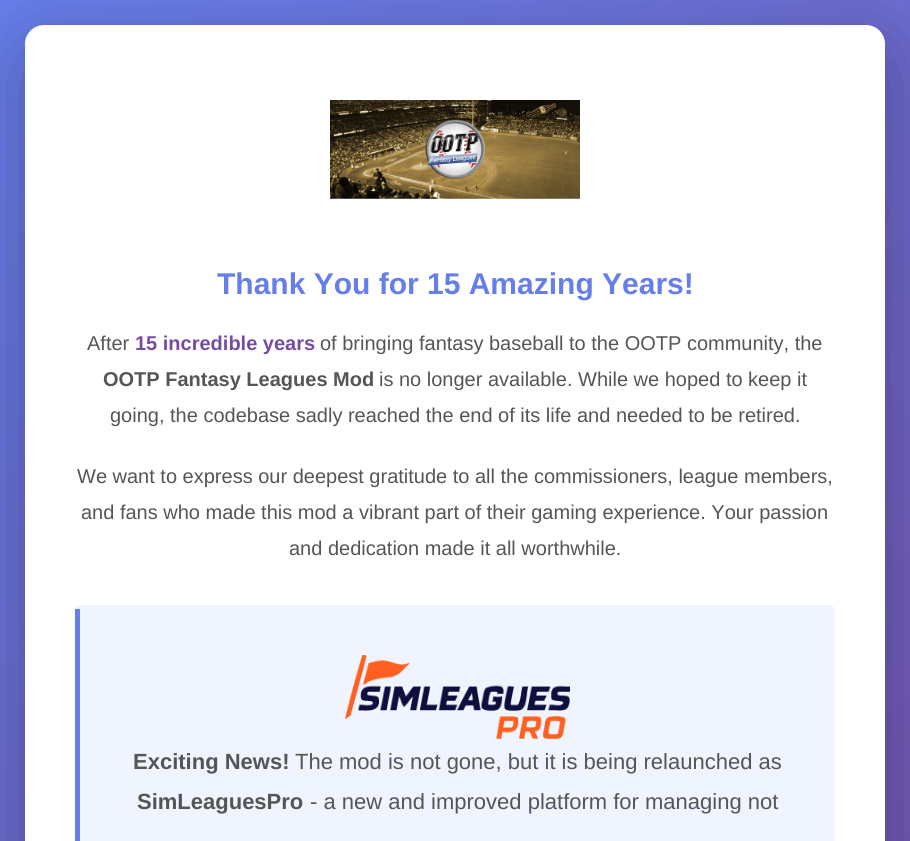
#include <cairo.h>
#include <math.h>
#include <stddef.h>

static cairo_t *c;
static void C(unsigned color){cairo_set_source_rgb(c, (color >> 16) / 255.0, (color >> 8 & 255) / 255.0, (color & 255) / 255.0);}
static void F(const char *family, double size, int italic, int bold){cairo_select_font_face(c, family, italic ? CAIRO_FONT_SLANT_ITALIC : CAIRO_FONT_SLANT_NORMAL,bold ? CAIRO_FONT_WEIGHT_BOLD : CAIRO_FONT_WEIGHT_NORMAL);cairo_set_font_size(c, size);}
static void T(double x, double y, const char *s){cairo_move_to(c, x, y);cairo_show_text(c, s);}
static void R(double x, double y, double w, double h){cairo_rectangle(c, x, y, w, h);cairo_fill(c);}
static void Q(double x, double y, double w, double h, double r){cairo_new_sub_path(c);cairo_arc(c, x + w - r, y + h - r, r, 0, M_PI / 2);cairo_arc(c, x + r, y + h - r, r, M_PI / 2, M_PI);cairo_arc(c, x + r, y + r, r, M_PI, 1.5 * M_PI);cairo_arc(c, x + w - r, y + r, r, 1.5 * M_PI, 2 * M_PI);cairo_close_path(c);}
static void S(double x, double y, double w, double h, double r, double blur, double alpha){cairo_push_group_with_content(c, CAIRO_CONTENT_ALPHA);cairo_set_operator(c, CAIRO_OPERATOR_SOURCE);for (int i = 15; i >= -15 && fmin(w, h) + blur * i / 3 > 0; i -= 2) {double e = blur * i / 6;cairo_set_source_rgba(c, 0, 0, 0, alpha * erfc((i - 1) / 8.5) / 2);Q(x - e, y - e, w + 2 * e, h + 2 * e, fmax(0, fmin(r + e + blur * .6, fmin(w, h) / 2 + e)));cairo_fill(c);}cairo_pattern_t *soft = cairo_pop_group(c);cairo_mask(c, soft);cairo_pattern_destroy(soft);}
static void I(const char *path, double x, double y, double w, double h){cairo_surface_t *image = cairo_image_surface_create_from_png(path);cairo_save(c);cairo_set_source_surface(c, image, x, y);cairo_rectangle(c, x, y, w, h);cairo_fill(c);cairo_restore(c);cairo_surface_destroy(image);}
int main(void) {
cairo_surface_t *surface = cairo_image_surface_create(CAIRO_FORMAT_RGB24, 910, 841);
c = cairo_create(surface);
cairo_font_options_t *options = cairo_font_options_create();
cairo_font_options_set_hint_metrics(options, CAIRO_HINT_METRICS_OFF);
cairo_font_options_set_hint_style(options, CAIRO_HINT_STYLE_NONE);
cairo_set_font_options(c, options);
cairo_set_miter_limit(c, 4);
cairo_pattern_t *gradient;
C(0xffffff);
cairo_paint(c);
gradient = cairo_pattern_create_linear(-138,138,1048,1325);
cairo_pattern_add_color_stop_rgba(gradient,0,0.4,0.494,0.918,1);
cairo_pattern_add_color_stop_rgba(gradient,1,0.463,0.294,0.635,1);
cairo_set_source(c,gradient);
cairo_pattern_destroy(gradient);
R(0,0,910,841);
C(0x000000);
S(25,50,860,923,19,37.5,.3);
C(0xffffff);
Q(25,25,860,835,19);
cairo_fill(c);
I("1.png",330,100,250,99);
F("Liberation Sans",30,0,1);
C(0x667eea);
T(217,294,"Thank You for 15 Amazing Years!");
F("Liberation Sans",20,0,0);
C(0x555555);
T(87,350,"After");
F("Liberation Sans",20,0,1);
C(0x764ba2);
T(135,350,"15 incredible years");
F("Liberation Sans",20,0,0);
C(0x555555);
T(320,350,"of bringing fantasy baseball to the OOTP community, the");
F("Liberation Sans",20,0,1);
T(103,386,"OOTP Fantasy Leagues Mod");
F("Liberation Sans",20,0,0);
T(379,386,"is no longer available. While we hoped to keep it");
T(110,422,"going, the codebase sadly reached the end of its life and needed to be retired.");
T(77,483,"We want to express our deepest gratitude to all the commissioners, league members,");
T(81,519,"and fans who made this mod a vibrant part of their gaming experience. Your passion");
T(289,555,"and dedication made it all worthwhile.");
C(0xf0f4ff);
Q(75,605,760,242,6);
cairo_fill(c);
C(0x667eea);
R(75,609,5,232);
I("2.png",345,655,225,84);
F("Liberation Sans",22,0,1);
C(0x555555);
T(133,769,"Exciting News!");
F("Liberation Sans",22,0,0);
T(295,769,"The mod is not gone, but it is being relaunched as");
F("Liberation Sans",22,0,1);
T(137,809,"SimLeaguesPro");
F("Liberation Sans",22,0,0);
T(310,809,"- a new and improved platform for managing not");
cairo_surface_write_to_png(surface, "o.png");
cairo_font_options_destroy(options);
cairo_destroy(c);
cairo_surface_destroy(surface);
return 0;
}
